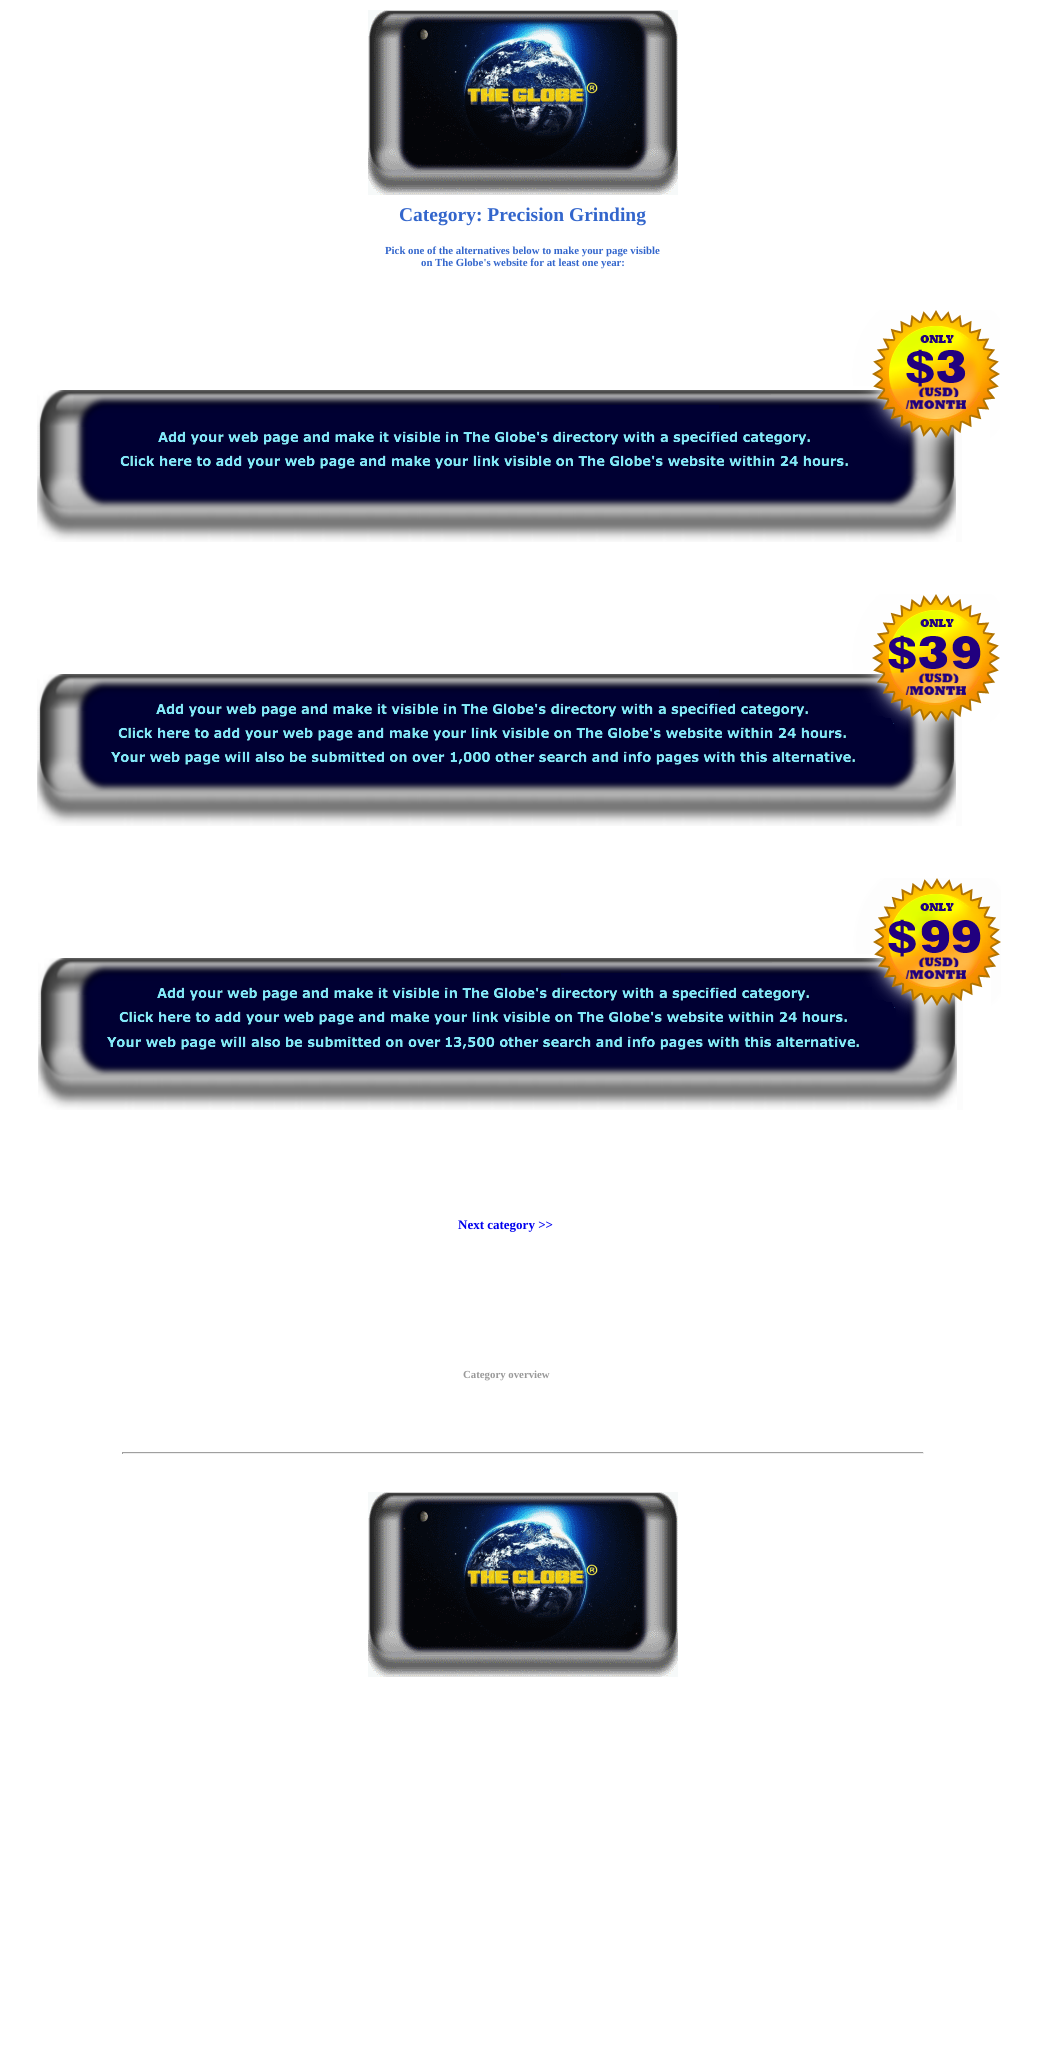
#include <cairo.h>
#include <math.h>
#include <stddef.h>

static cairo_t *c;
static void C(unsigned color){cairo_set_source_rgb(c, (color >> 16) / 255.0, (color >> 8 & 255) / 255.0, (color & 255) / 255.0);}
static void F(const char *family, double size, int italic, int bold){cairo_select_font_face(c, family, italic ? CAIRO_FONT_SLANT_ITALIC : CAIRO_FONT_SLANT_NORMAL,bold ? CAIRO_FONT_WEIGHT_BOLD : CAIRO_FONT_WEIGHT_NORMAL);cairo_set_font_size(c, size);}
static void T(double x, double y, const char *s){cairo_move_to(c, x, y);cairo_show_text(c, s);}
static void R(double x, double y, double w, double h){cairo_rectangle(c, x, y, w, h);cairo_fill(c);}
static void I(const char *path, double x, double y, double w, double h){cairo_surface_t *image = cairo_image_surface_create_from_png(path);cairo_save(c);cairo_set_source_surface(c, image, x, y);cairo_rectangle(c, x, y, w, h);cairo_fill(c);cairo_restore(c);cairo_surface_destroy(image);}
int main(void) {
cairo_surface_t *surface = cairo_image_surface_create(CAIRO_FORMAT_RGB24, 1045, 2054);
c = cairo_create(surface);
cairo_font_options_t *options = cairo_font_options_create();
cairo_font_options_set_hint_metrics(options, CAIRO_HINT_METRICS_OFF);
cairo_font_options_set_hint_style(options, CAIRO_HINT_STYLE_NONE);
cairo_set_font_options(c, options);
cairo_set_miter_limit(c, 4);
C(0xffffff);
cairo_paint(c);
I("1.png",368,10,310,185);
F("Liberation Serif",19.5,0,1);
C(0x3366cc);
T(399,221,"Category: Precision Grinding");
F("Liberation Serif",10.8,0,1);
T(385,254,"Pick one of the alternatives below to make your page visible");
T(421,266,"on The Globe's website for at least one year:");
I("2.png",37,310,963,232);
I("3.png",37,594,963,232);
I("4.png",38,878,963,232);
F("Liberation Serif",13,0,1);
C(0x0000ee);
T(458,1229,"Next category >>");
F("Liberation Serif",10.8,0,1);
C(0x999999);
T(463,1378,"Category overview");
C(0x9f9f9f);
R(122,1452,802,1);
C(0xeeeeee);
R(923,1452,1,2);
R(122,1453,802,1);
C(0x9f9f9f);
R(122,1452,1,2);
I("1.png",368,1492,310,185);
cairo_surface_write_to_png(surface, "o.png");
cairo_font_options_destroy(options);
cairo_destroy(c);
cairo_surface_destroy(surface);
return 0;
}
